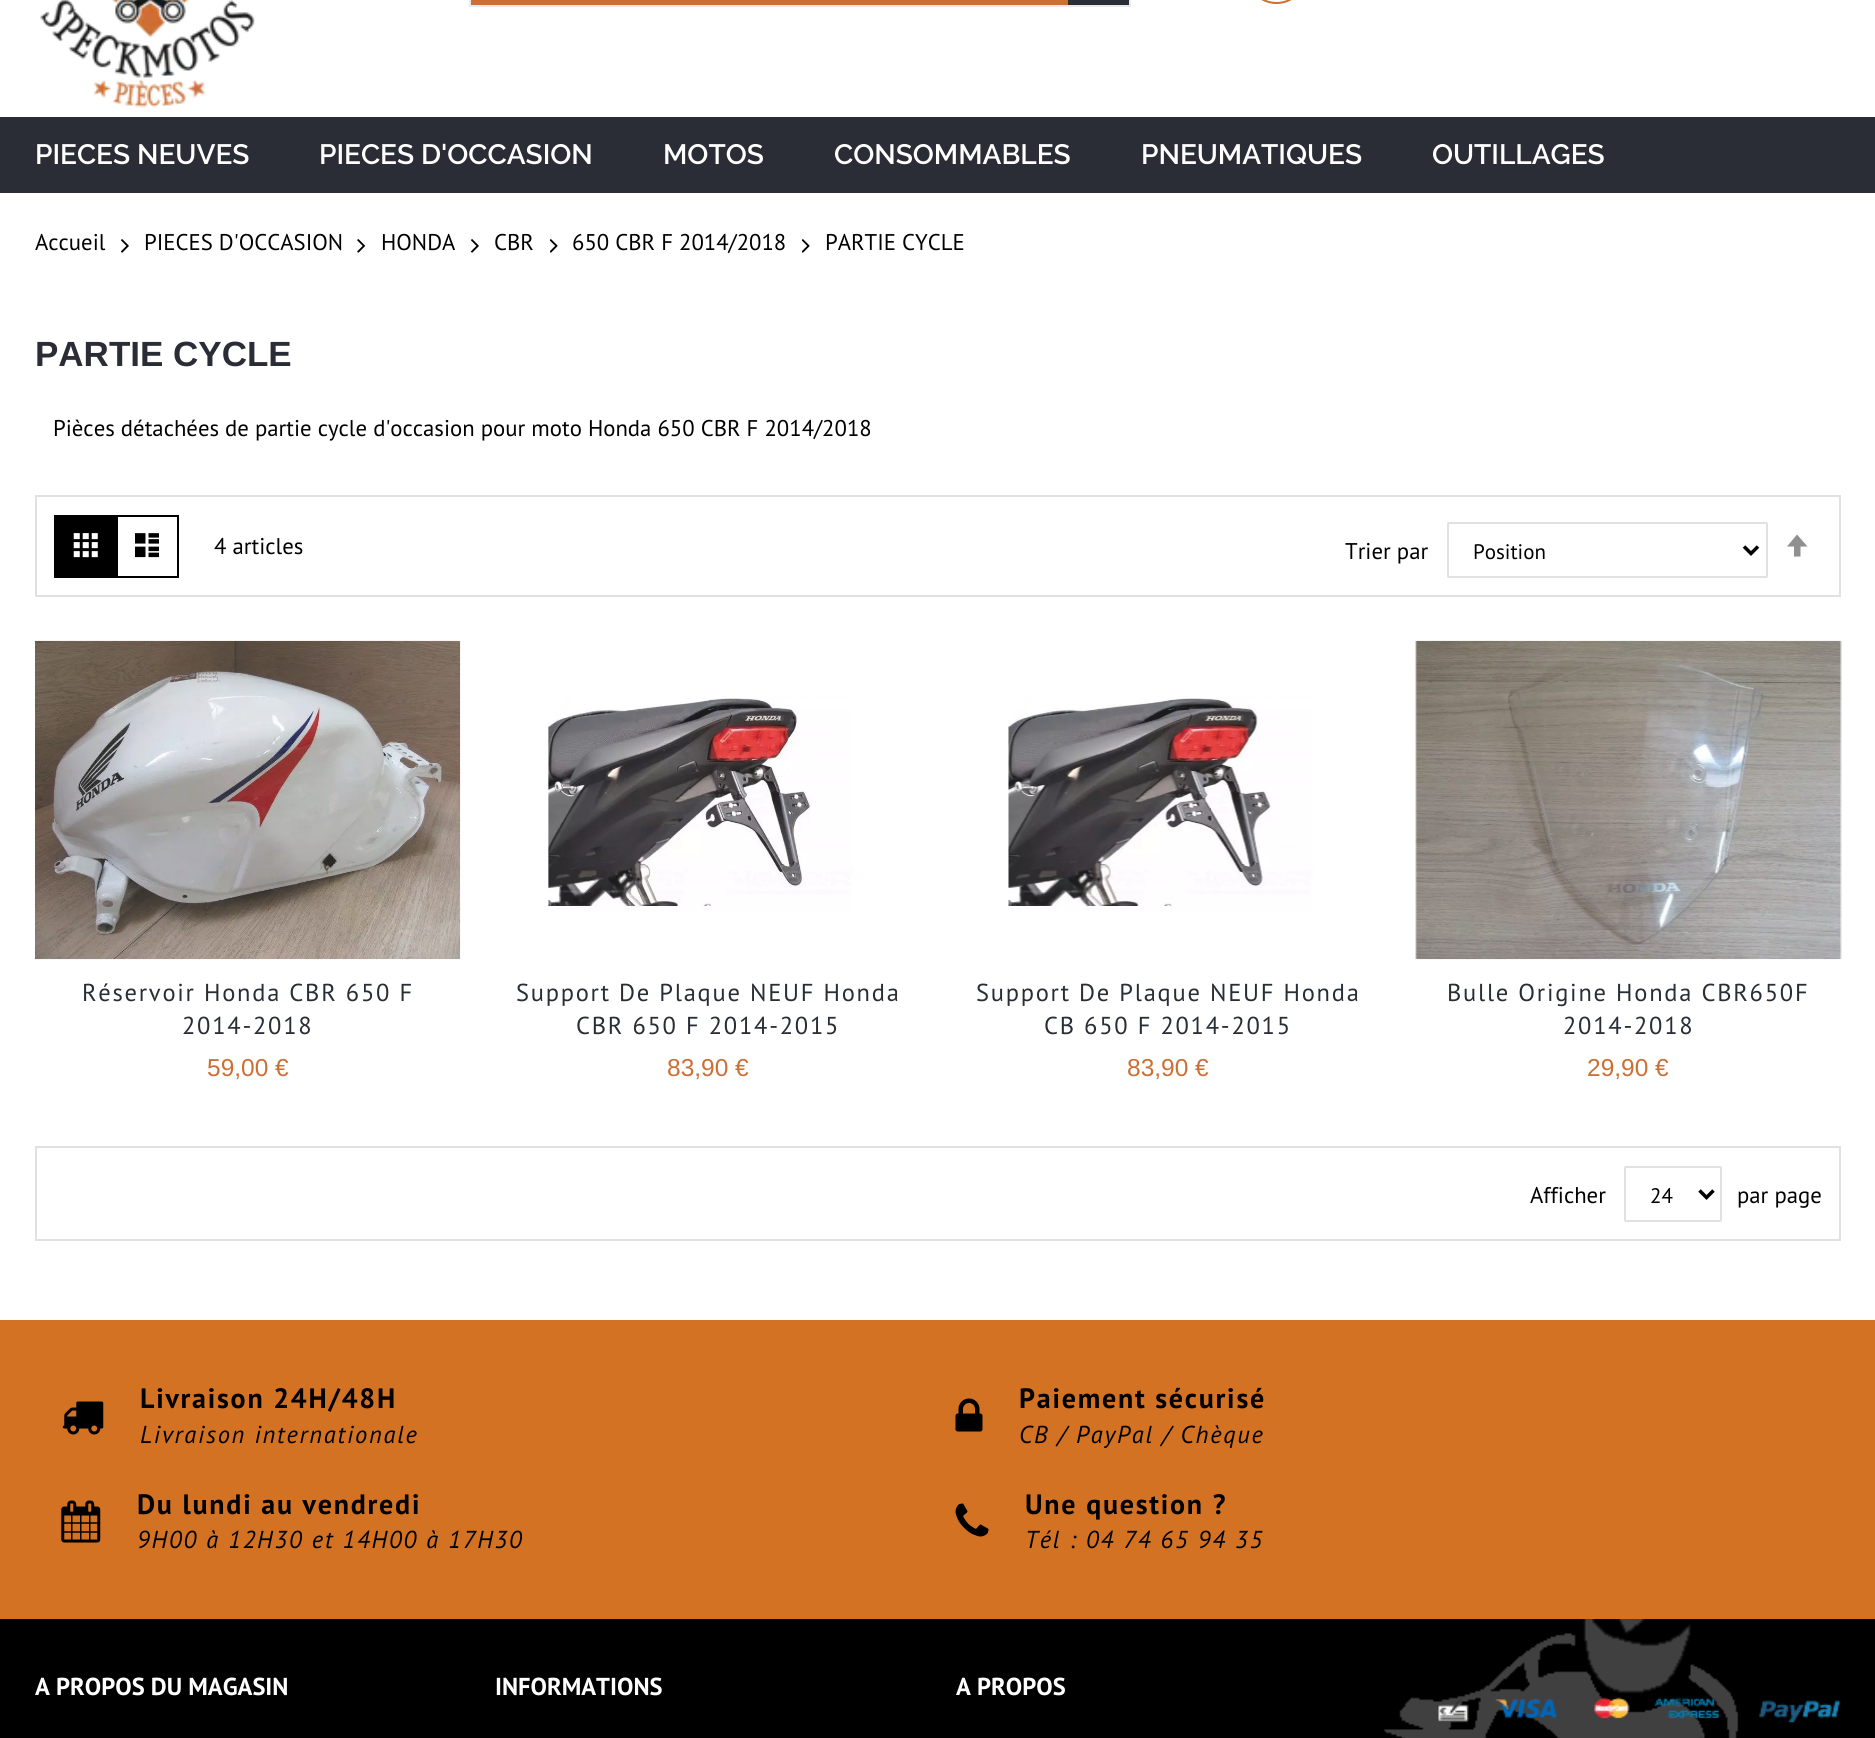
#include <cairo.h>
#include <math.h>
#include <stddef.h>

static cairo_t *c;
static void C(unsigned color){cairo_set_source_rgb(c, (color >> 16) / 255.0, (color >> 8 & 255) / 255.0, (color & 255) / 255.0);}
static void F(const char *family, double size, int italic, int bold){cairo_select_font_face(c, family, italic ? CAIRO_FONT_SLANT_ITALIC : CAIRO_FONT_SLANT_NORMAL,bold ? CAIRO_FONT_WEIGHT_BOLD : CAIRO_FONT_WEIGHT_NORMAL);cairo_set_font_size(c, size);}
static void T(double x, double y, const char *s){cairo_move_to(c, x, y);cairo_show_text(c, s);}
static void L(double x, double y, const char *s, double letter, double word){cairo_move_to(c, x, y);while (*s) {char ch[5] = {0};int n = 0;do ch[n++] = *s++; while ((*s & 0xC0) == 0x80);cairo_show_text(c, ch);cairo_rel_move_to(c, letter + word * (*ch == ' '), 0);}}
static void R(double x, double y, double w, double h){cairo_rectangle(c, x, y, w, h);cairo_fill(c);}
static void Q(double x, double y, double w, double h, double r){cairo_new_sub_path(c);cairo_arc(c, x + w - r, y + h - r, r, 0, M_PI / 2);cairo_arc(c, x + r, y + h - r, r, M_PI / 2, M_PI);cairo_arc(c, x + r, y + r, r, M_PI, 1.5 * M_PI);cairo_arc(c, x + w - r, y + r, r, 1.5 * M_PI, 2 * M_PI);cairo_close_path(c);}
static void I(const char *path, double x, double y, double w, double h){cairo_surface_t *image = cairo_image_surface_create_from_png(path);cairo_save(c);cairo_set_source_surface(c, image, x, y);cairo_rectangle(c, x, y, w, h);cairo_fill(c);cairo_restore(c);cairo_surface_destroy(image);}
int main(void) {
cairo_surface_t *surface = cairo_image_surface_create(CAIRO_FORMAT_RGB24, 1875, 1738);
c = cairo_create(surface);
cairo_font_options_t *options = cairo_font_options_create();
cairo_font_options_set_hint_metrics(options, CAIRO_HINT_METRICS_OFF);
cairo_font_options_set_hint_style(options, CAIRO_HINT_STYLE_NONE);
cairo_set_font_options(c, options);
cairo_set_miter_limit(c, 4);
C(0xffffff);
cairo_paint(c);
I("1.png",40,0,215,108);
C(0xcc6f35);
R(469,0,599,5);
cairo_rectangle(c,470,-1,660,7);
C(0xeaeaee);
cairo_stroke(c);
C(0x2b2d36);
R(1068,0,61,5);
Q(1247,-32,59,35,29.5);
C(0xcc6f35);
cairo_stroke(c);
C(0x2b2d36);
R(0,117,1875,76);
F("Raleway SemiBold",28,0,0);
C(0xffffff);
T(35,164,"PIECES NEUVES");
T(319,164,"PIECES D'OCCASION");
T(663,164,"MOTOS");
T(834,164,"CONSOMMABLES");
T(1141,164,"PNEUMATIQUES");
T(1432,164,"OUTILLAGES");
F("PT Sans",22.75,0,0);
C(0x000000);
T(35,250,"Accueil");
I("2.png",121,239,8,14);
T(144,250,"PIECES D'OCCASION");
I("3.png",357,239,9,14);
T(381,250,"HONDA");
I("2.png",471,239,8,14);
T(494,250,"CBR");
I("4.png",550,239,8,14);
T(572,250,"650 CBR F 2014/2018");
I("4.png",802,239,8,14);
T(825,250,"PARTIE CYCLE");
F("Liberation Sans",35,0,1);
C(0x2b2d36);
T(35,366,"PARTIE CYCLE");
F("PT Sans",22.75,0,0);
C(0x000000);
T(53,436,"Pièces détachées de partie cycle d'occasion pour moto Honda 650 CBR F 2014/2018");
cairo_rectangle(c,36,496,1804,100);
C(0xe1e1e1);
cairo_stroke(c);
C(0x000000);
R(54,515,62,63);
I("5.png",73,533,25,25);
cairo_rectangle(c,117,516,61,61);
cairo_stroke(c);
I("6.png",135,533,24,25);
T(214,554,"4 articles");
T(1345,559,"Trier par");
Q(1448,523,319,54,1);
C(0xe1e1e1);
cairo_stroke(c);
cairo_new_path(c);
cairo_move_to(c,1744,546.5);
cairo_line_to(c,1751,553.5);
cairo_line_to(c,1758,546.5);
C(0x000000);
cairo_set_line_width(c,3.5);
cairo_stroke(c);
F("PT Sans",21,0,0);
T(1473,559,"Position");
C(0x8f8f8f);
cairo_new_path(c);
cairo_move_to(c,1797,534.5);
cairo_line_to(c,1787,546.5);
cairo_line_to(c,1794,546.5);
cairo_line_to(c,1794,556.5);
cairo_line_to(c,1800.5,556.5);
cairo_line_to(c,1800.5,546.5);
cairo_line_to(c,1807.5,546.5);
cairo_close_path(c);
cairo_fill(c);
I("7.png",35,640,426,320);
F("PT Sans",24.5,0,0);
C(0x2b2d36);
L(82,1001,"Réservoir Honda CBR 650 F",1.75,0);
L(182,1034,"2014-2018",1.75,0);
F("Liberation Sans",24.5,0,0);
C(0xcc6f35);
T(207,1076,"59,00 €");
I("8.png",548,696,305,215);
F("PT Sans",24.5,0,0);
C(0x2b2d36);
L(516,1001,"Support De Plaque NEUF Honda",1.75,0);
L(576,1034,"CBR 650 F 2014-2015",1.75,0);
F("Liberation Sans",24.5,0,0);
C(0xcc6f35);
T(667,1076,"83,90 €");
I("9.png",1008,696,305,215);
F("PT Sans",24.5,0,0);
C(0x2b2d36);
L(976,1001,"Support De Plaque NEUF Honda",1.75,0);
L(1044,1034,"CB 650 F 2014-2015",1.75,0);
F("Liberation Sans",24.5,0,0);
C(0xcc6f35);
T(1127,1076,"83,90 €");
I("10.png",1415,640,427,320);
F("PT Sans",24.5,0,0);
C(0x2b2d36);
L(1447,1001,"Bulle Origine Honda CBR650F",1.75,0);
L(1563,1034,"2014-2018",1.75,0);
F("Liberation Sans",24.5,0,0);
C(0xcc6f35);
T(1587,1076,"29,90 €");
cairo_rectangle(c,36,1147,1804,93);
C(0xe1e1e1);
cairo_set_line_width(c,2);
cairo_stroke(c);
F("PT Sans",22.75,0,0);
C(0x000000);
T(1530,1203,"Afficher");
Q(1625,1167,96,54,1);
C(0xe1e1e1);
cairo_stroke(c);
cairo_new_path(c);
cairo_move_to(c,1699.5,1190.5);
cairo_line_to(c,1706.5,1197.5);
cairo_line_to(c,1713.5,1190.5);
C(0x000000);
cairo_set_line_width(c,3.5);
cairo_stroke(c);
F("PT Sans",21,0,0);
T(1650,1203,"24");
F("PT Sans",22.75,0,0);
T(1737,1203,"par page");
C(0xd47223);
R(0,1320,1875,299);
I("11.png",62,1401,42,34);
F("PT Sans",28,0,1);
C(0x000000);
L(140,1408,"Livraison 24H/48H",1.75,0);
F("PT Sans",24.5,1,0);
L(140,1443,"Livraison internationale",1.75,0);
I("12.png",955,1398,28,34);
F("PT Sans",28,0,1);
L(1019,1408,"Paiement sécurisé",1.75,0);
F("PT Sans",24.5,1,0);
L(1019,1443,"CB / PayPal / Chèque",1.75,0);
I("13.png",61,1500,40,43);
F("PT Sans",28,0,1);
L(137,1514,"Du lundi au vendredi",1.75,0);
F("PT Sans",24.5,1,0);
L(137,1548,"9H00 à 12H30 et 14H00 à 17H30",1.75,0);
I("14.png",955,1503,34,34);
F("PT Sans",28,0,1);
L(1025,1514,"Une question ?",1.75,0);
F("PT Sans",24.5,1,0);
L(1025,1548,"Tél : 04 74 65 94 35",1.75,0);
R(0,1619,1875,119);
I("15.png",1384,1619,355,119);
F("PT Sans",24.5,0,1);
C(0xffffff);
T(35,1695,"A PROPOS DU MAGASIN");
T(495,1695,"INFORMATIONS");
T(956,1695,"A PROPOS");
I("16.png",1437,1697,404,26);
cairo_surface_write_to_png(surface, "o.png");
cairo_font_options_destroy(options);
cairo_destroy(c);
cairo_surface_destroy(surface);
return 0;
}
